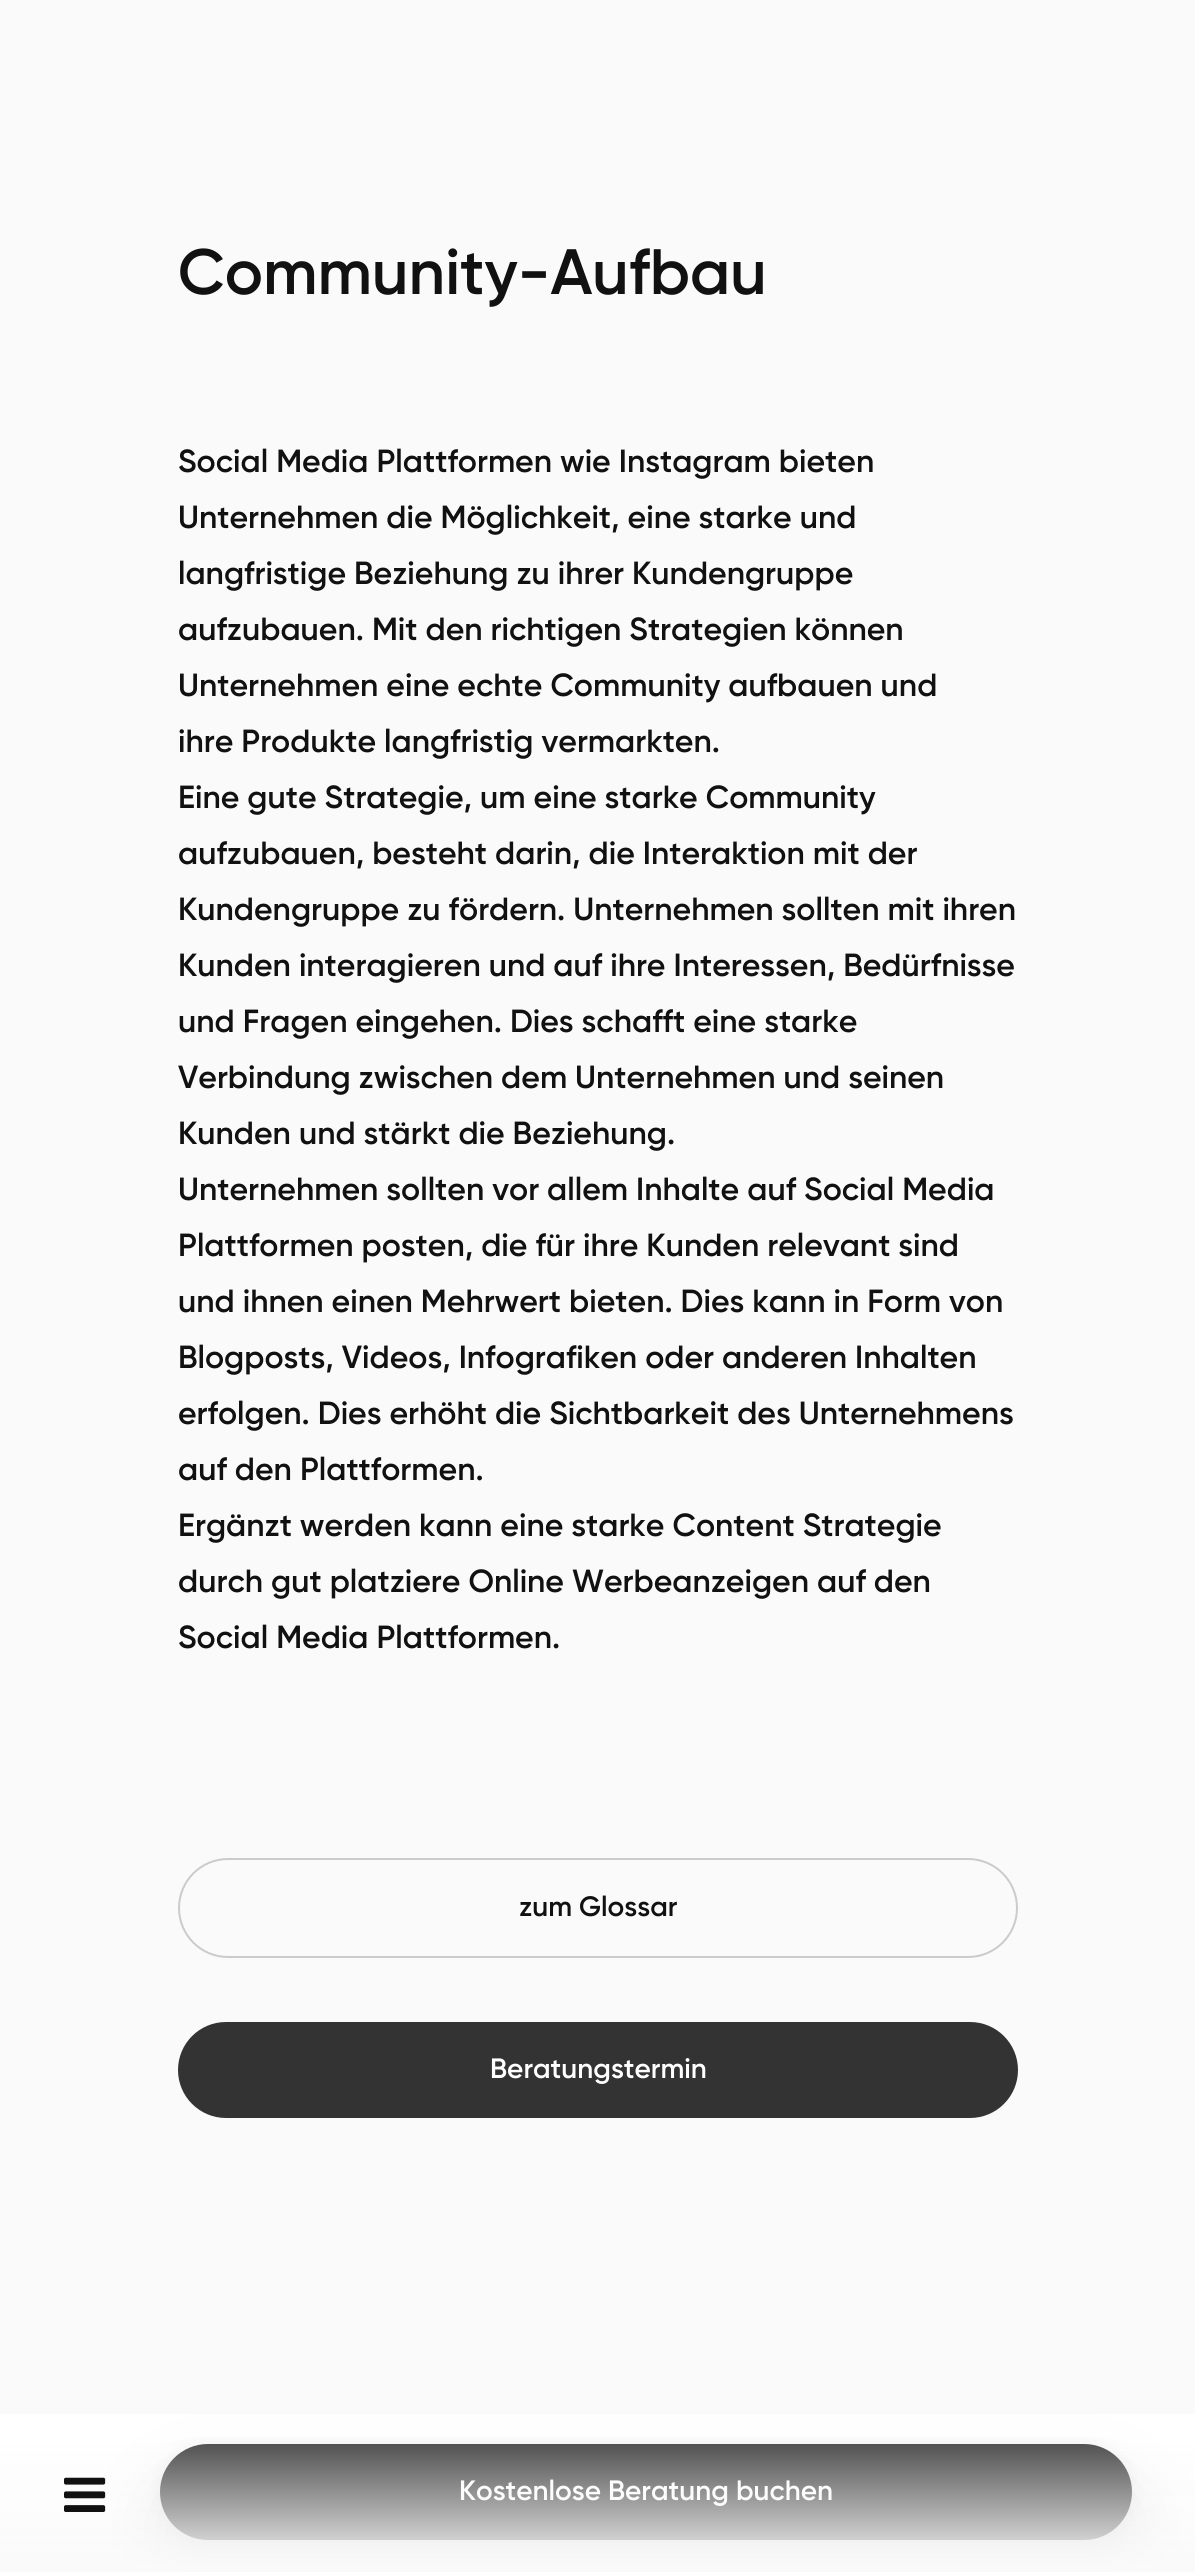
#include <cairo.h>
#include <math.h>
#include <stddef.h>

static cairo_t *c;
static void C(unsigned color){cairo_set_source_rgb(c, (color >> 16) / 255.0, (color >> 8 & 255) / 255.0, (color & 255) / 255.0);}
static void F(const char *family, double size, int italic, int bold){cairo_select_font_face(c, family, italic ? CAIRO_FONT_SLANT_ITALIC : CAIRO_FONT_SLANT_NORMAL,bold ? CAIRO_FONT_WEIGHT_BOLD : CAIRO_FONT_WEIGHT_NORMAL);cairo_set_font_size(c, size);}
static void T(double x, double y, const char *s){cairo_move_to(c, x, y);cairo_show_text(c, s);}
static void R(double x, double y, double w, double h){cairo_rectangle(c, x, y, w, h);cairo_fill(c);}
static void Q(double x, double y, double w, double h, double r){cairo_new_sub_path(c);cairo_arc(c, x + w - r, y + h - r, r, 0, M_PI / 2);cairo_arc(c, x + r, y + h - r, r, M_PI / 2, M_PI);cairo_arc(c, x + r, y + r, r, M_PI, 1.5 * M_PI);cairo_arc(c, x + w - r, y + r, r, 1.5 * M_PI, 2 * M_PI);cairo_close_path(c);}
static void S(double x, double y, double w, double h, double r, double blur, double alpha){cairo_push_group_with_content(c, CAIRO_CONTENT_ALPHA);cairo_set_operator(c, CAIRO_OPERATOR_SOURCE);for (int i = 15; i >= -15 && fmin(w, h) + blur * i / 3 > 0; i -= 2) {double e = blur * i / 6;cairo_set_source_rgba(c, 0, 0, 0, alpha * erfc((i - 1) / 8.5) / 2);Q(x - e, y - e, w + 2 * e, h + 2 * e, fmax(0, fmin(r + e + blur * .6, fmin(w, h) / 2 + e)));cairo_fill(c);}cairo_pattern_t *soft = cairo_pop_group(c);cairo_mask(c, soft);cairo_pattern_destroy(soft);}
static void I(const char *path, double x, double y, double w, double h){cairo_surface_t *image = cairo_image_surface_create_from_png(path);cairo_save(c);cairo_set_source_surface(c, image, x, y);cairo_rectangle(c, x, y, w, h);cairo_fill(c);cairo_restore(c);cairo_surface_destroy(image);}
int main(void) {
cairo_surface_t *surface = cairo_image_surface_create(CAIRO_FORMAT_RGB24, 1195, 2572);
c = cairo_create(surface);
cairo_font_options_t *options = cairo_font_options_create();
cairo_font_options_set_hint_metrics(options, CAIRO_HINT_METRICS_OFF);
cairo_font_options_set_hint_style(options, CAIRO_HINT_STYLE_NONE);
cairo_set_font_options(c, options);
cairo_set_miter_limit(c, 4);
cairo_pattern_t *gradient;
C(0xfafafa);
cairo_paint(c);
F("Gilroy SemiBold",64,0,0);
C(0x111111);
T(178,294,"Community-Aufbau");
F("Gilroy SemiBold",32,0,0);
T(178,472,"Social Media Plattformen wie Instagram bieten");
T(178,528,"Unternehmen die Möglichkeit, eine starke und");
T(178,584,"langfristige Beziehung zu ihrer Kundengruppe");
T(178,640,"aufzubauen. Mit den richtigen Strategien können");
T(178,696,"Unternehmen eine echte Community aufbauen und");
T(178,752,"ihre Produkte langfristig vermarkten.");
T(178,808,"Eine gute Strategie, um eine starke Community");
T(178,864,"aufzubauen, besteht darin, die Interaktion mit der");
T(178,920,"Kundengruppe zu fördern. Unternehmen sollten mit ihren");
T(178,976,"Kunden interagieren und auf ihre Interessen, Bedürfnisse");
T(178,1032,"und Fragen eingehen. Dies schafft eine starke");
T(178,1088,"Verbindung zwischen dem Unternehmen und seinen");
T(178,1144,"Kunden und stärkt die Beziehung.");
T(178,1200,"Unternehmen sollten vor allem Inhalte auf Social Media");
T(178,1256,"Plattformen posten, die für ihre Kunden relevant sind");
T(178,1312,"und ihnen einen Mehrwert bieten. Dies kann in Form von");
T(178,1368,"Blogposts, Videos, Infografiken oder anderen Inhalten");
T(178,1424,"erfolgen. Dies erhöht die Sichtbarkeit des Unternehmens");
T(178,1480,"auf den Plattformen.");
T(178,1536,"Ergänzt werden kann eine starke Content Strategie");
T(178,1592,"durch gut platziere Online Werbeanzeigen auf den");
T(178,1648,"Social Media Plattformen.");
Q(179,1859,838,98,49);
C(0xcbcbcb);
cairo_stroke(c);
F("Gilroy SemiBold",28,0,0);
C(0x111111);
T(519,1916,"zum Glossar");
C(0x333333);
Q(178,2022,840,96,48);
cairo_fill(c);
C(0xffffff);
T(490,2078,"Beratungstermin");
R(0,2414,1195,157);
C(0x606170);
S(160,2484,972,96,48,32,.24);
C(0x28293d);
S(160,2448,972,96,48,8,.08);
C(0x333333);
Q(160,2444,972,96,48);
cairo_fill(c);
C(0xffffff);
T(459,2500,"Kostenlose Beratung buchen");
gradient = cairo_pattern_create_linear(598,2572,598,2420);
cairo_pattern_add_color_stop_rgba(gradient,0,0.98,0.98,0.98,1);
cairo_pattern_add_color_stop_rgba(gradient,1,0.98,0.98,0.98,0);
cairo_set_source(c,gradient);
cairo_pattern_destroy(gradient);
R(0,2444,1195,128);
I("1.png",64,2477,42,35);
cairo_surface_write_to_png(surface, "o.png");
cairo_font_options_destroy(options);
cairo_destroy(c);
cairo_surface_destroy(surface);
return 0;
}
